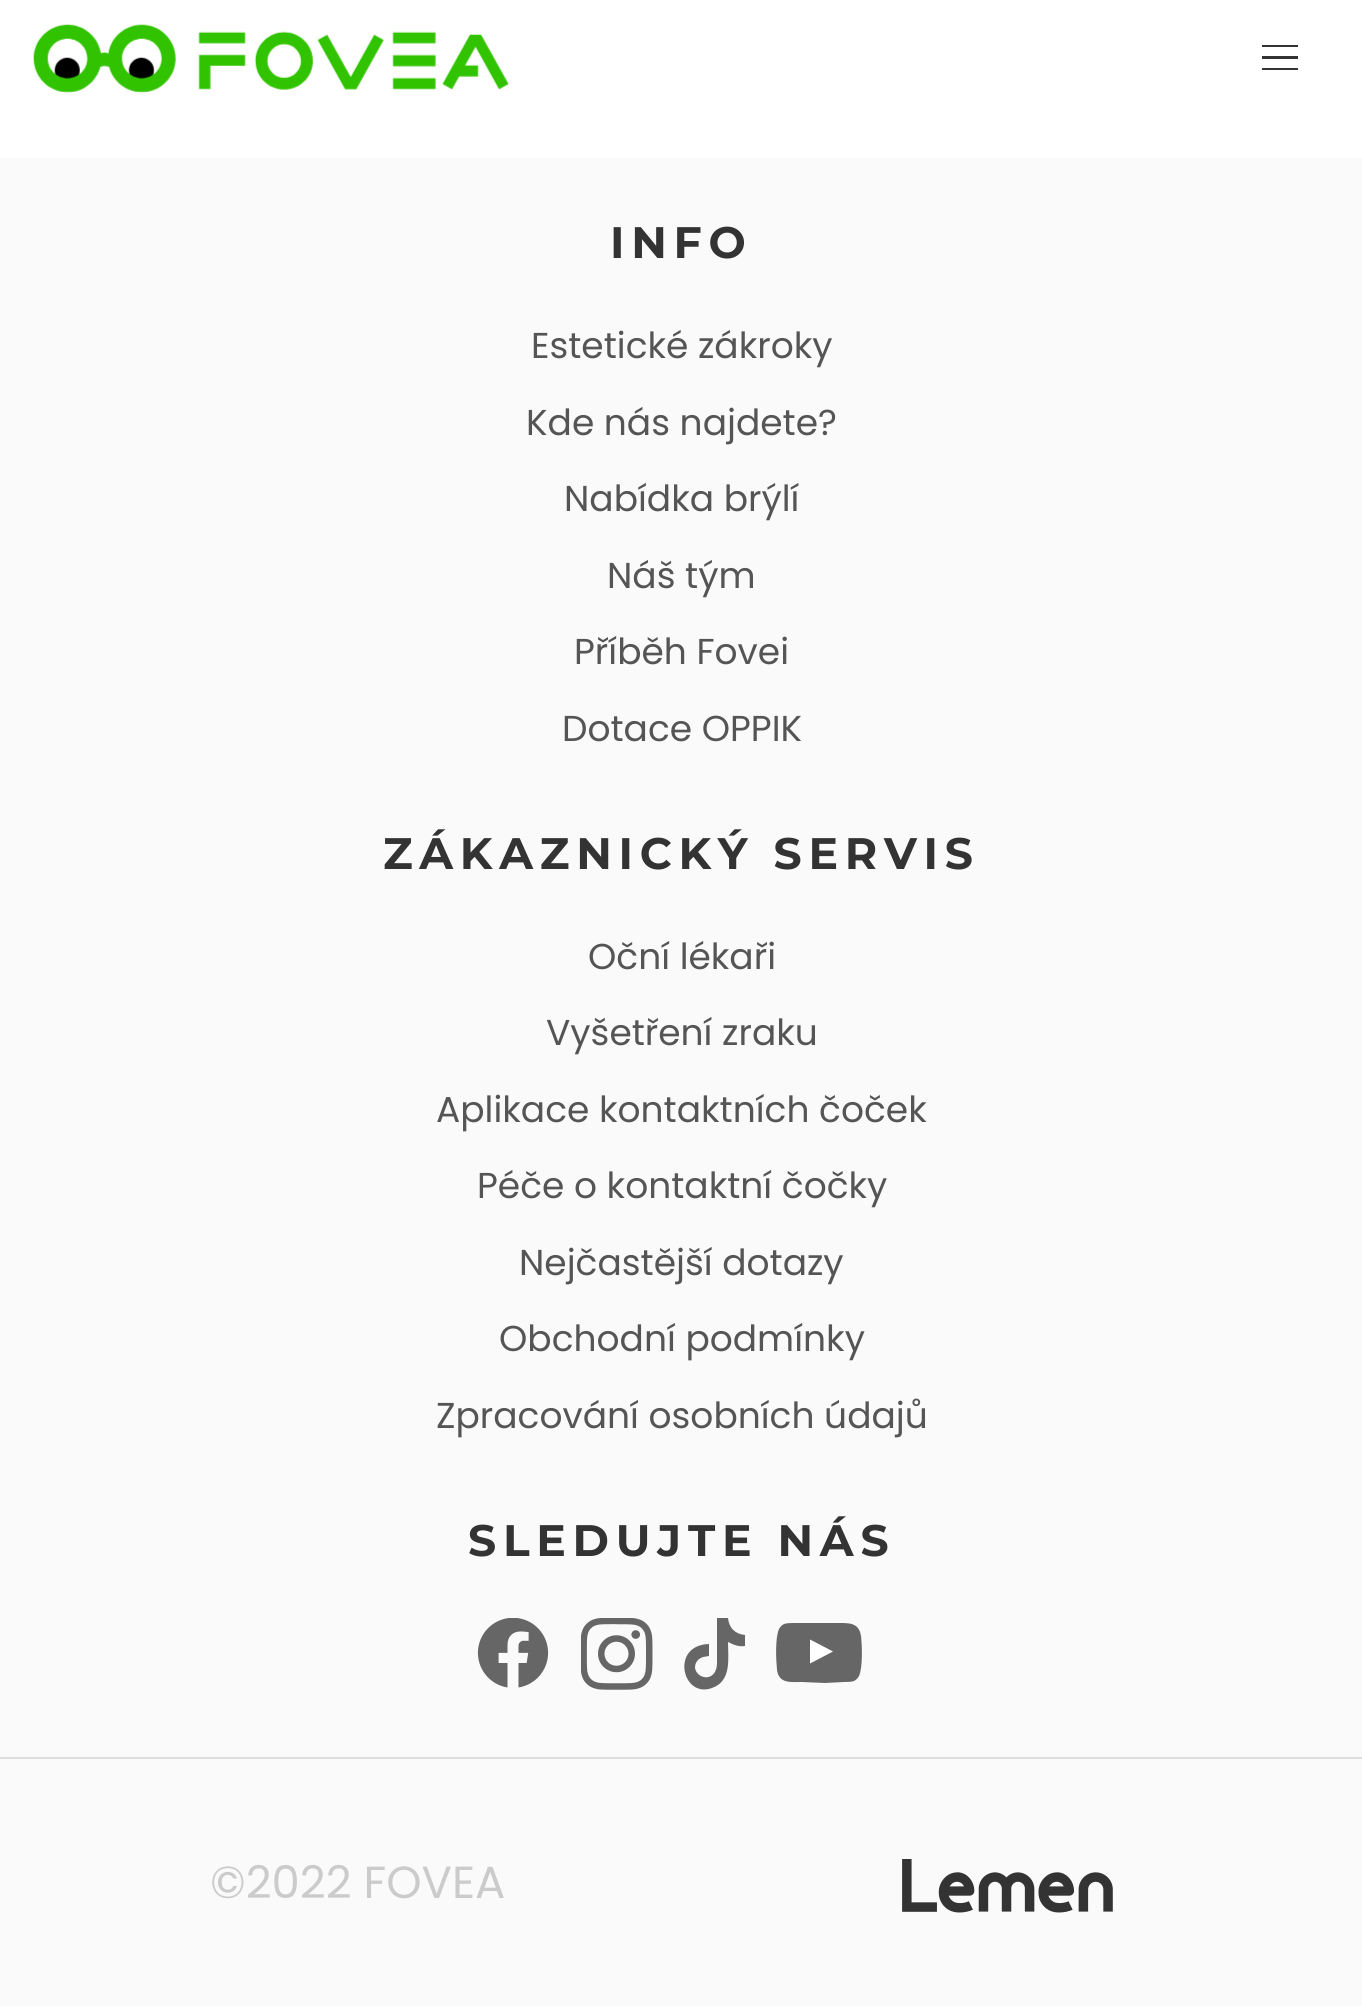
#include <cairo.h>
#include <math.h>
#include <stddef.h>

static cairo_t *c;
static void C(unsigned color){cairo_set_source_rgb(c, (color >> 16) / 255.0, (color >> 8 & 255) / 255.0, (color & 255) / 255.0);}
static void F(const char *family, double size, int italic, int bold){cairo_select_font_face(c, family, italic ? CAIRO_FONT_SLANT_ITALIC : CAIRO_FONT_SLANT_NORMAL,bold ? CAIRO_FONT_WEIGHT_BOLD : CAIRO_FONT_WEIGHT_NORMAL);cairo_set_font_size(c, size);}
static void T(double x, double y, const char *s){cairo_move_to(c, x, y);cairo_show_text(c, s);}
static void L(double x, double y, const char *s, double letter, double word){cairo_move_to(c, x, y);while (*s) {char ch[5] = {0};int n = 0;do ch[n++] = *s++; while ((*s & 0xC0) == 0x80);cairo_show_text(c, ch);cairo_rel_move_to(c, letter + word * (*ch == ' '), 0);}}
static void R(double x, double y, double w, double h){cairo_rectangle(c, x, y, w, h);cairo_fill(c);}
static void I(const char *path, double x, double y, double w, double h){cairo_surface_t *image = cairo_image_surface_create_from_png(path);cairo_save(c);cairo_set_source_surface(c, image, x, y);cairo_rectangle(c, x, y, w, h);cairo_fill(c);cairo_restore(c);cairo_surface_destroy(image);}
int main(void) {
cairo_surface_t *surface = cairo_image_surface_create(CAIRO_FORMAT_RGB24, 1362, 2006);
c = cairo_create(surface);
cairo_font_options_t *options = cairo_font_options_create();
cairo_font_options_set_hint_metrics(options, CAIRO_HINT_METRICS_OFF);
cairo_font_options_set_hint_style(options, CAIRO_HINT_STYLE_NONE);
cairo_set_font_options(c, options);
cairo_set_miter_limit(c, 4);
C(0xfafafa);
cairo_paint(c);
C(0xffffff);
R(0,0,1362,158);
I("1.png",33,24,476,69);
C(0x333333);
R(1262,45,36,2);
R(1262,56,36,3);
R(1262,68,36,2);
F("Montserrat",44.1,0,1);
L(610,258,"INFO",6.75,0);
F("Poppins",36,0,0);
C(0x555555);
T(531,358,"Estetické zákroky");
T(526,435,"Kde nás najdete?");
T(564,511,"Nabídka brýlí");
T(607,588,"Náš tým");
T(574,664,"Příběh Fovei");
T(562,741,"Dotace OPPIK");
F("Montserrat",44.1,0,1);
C(0x333333);
L(383,869,"ZÁKAZNICKÝ SERVIS",6.75,0);
F("Poppins",36,0,0);
C(0x555555);
T(588,969,"Oční lékaři");
T(546,1045,"Vyšetření zraku");
T(436,1122,"Aplikace kontaktních čoček");
T(477,1198,"Péče o kontaktní čočky");
T(519,1275,"Nejčastější dotazy");
T(499,1351,"Obchodní podmínky");
T(436,1428,"Zpracování osobních údajů");
F("Montserrat",44.1,0,1);
C(0x333333);
L(468,1556,"SLEDUJTE NÁS",6.75,0);
I("2.png",477,1618,72,70);
I("3.png",581,1618,72,72);
C(0x666666);
cairo_set_fill_rule(c,CAIRO_FILL_RULE_EVEN_ODD);
cairo_new_path(c);
cairo_move_to(c,728,1618);
cairo_curve_to(c,729,1628,735,1634,745,1635);
cairo_line_to(c,745,1646);
cairo_curve_to(c,739,1647,734,1645,728,1642);
cairo_curve_to(c,728,1658,732,1681,712,1688);
cairo_curve_to(c,682,1699,670,1645,709,1644);
cairo_line_to(c,709,1656);
cairo_line_to(c,703,1657);
cairo_curve_to(c,698,1659,695,1662,695,1668);
cairo_curve_to(c,697,1680,718,1683,717,1661);
cairo_line_to(c,717,1618);
cairo_close_path(c);
cairo_fill(c);
cairo_new_path(c);
cairo_move_to(c,861,1636);
cairo_curve_to(c,859,1623,850,1623,839,1623);
cairo_line_to(c,813,1623);
cairo_line_to(c,794,1623);
cairo_curve_to(c,791,1623,787,1623,784,1624);
cairo_curve_to(c,782,1625,780,1627,779,1629);
cairo_curve_to(c,775,1638,776,1660,777,1670);
cairo_curve_to(c,779,1684,791,1682,802,1682);
cairo_line_to(c,825,1683);
cairo_line_to(c,844,1682);
cairo_curve_to(c,847,1682,851,1682,854,1681);
cairo_curve_to(c,856,1680,858,1678,859,1676);
cairo_curve_to(c,863,1667,862,1645,861,1635);
cairo_close_path(c);
cairo_fill(c);
C(0xffffff);
cairo_new_path(c);
cairo_move_to(c,810,1663.5);
cairo_line_to(c,810,1639.5);
cairo_line_to(c,833,1651.5);
cairo_close_path(c);
cairo_fill(c);
C(0xdddddd);
R(0,1757,1362,2);
F("Poppins",45,0,0);
C(0xcbcbcb);
T(210,1898,"©2022 FOVEA");
I("4.png",902,1859,211,54);
cairo_surface_write_to_png(surface, "o.png");
cairo_font_options_destroy(options);
cairo_destroy(c);
cairo_surface_destroy(surface);
return 0;
}
